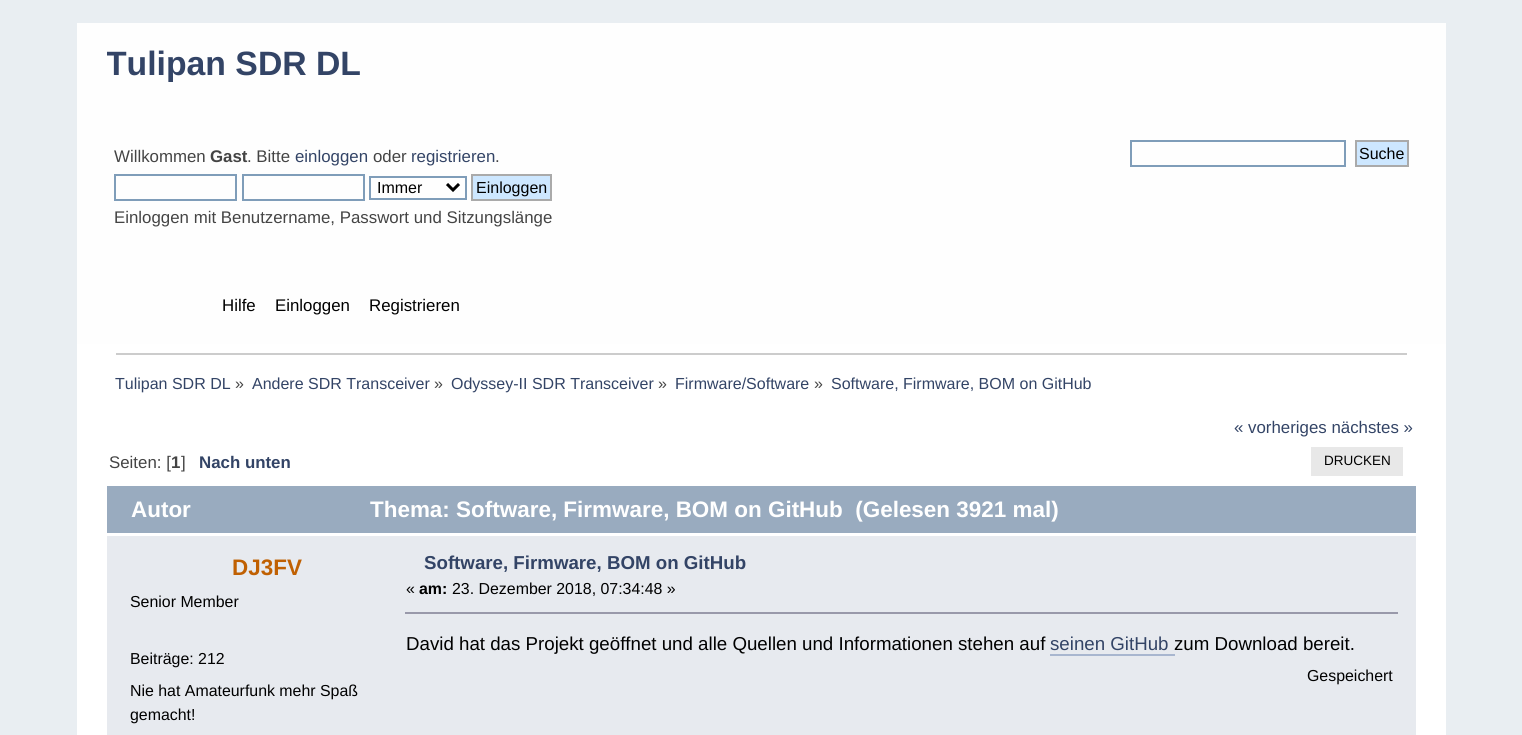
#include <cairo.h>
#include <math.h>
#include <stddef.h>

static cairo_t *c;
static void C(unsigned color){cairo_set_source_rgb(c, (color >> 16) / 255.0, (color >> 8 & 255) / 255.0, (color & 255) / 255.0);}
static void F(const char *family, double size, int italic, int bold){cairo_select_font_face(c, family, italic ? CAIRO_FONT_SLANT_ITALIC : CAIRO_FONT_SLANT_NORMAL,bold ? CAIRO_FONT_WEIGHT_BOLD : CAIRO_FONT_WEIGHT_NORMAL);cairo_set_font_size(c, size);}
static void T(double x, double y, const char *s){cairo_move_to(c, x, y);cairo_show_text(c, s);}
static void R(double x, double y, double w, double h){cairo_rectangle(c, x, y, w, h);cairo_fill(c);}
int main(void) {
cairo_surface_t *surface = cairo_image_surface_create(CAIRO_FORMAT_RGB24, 1522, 735);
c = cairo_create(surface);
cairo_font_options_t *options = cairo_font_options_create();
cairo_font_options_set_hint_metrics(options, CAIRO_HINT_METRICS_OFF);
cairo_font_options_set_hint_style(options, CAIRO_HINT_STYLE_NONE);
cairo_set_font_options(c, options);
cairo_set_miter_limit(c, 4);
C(0xe9eef2);
cairo_paint(c);
C(0xfefefe);
R(77,23,1369,321);
cairo_save(c);
cairo_rectangle(c,107,30,1309,98);
cairo_clip(c);
F("Liberation Sans",33.75,0,1);
C(0x334466);
T(106,75,"Tulipan SDR DL");
cairo_restore(c);
F("Liberation Sans",16.85,0,0);
C(0x444444);
T(114,162,"Willkommen");
F("Liberation Sans",16.85,0,1);
T(210,162,"Gast");
F("Liberation Sans",16.85,0,0);
T(247,162,". Bitte");
C(0x334466);
T(295,162,"einloggen");
C(0x444444);
T(373,162,"oder");
C(0x334466);
T(411,162,"registrieren");
C(0x444444);
T(495,162,".");
cairo_rectangle(c,115,175,121,25);
C(0x7f9db9);
cairo_stroke(c);
cairo_rectangle(c,243,175,121,25);
cairo_stroke(c);
cairo_rectangle(c,370,177,96,22);
cairo_stroke(c);
cairo_new_path(c);
cairo_move_to(c,447,184);
cairo_line_to(c,453,190);
cairo_line_to(c,459,184);
C(0x000000);
cairo_set_line_width(c,3);
cairo_stroke(c);
F("Liberation Sans",16,0,0);
T(377,193,"Immer");
C(0xcde7ff);
cairo_rectangle(c,472,175,79,25);
cairo_fill_preserve(c);
C(0xaaaaaa);
cairo_set_line_width(c,2);
cairo_stroke(c);
C(0x000000);
T(476,193,"Einloggen");
F("Liberation Sans",16.85,0,0);
C(0x444444);
T(114,223,"Einloggen mit Benutzername, Passwort und Sitzungslänge");
cairo_rectangle(c,1131,141,214,25);
C(0x7f9db9);
cairo_stroke(c);
C(0xcde7ff);
cairo_rectangle(c,1356,141,52,25);
cairo_fill_preserve(c);
C(0xaaaaaa);
cairo_stroke(c);
F("Liberation Sans",16,0,0);
C(0x000000);
T(1359,159,"Suche");
F("Liberation Sans",16.85,0,0);
T(222,311,"Hilfe");
T(275,311,"Einloggen");
T(369,311,"Registrieren");
C(0xffffff);
R(77,344,1369,391);
C(0xcccccc);
R(116,353,1291,2);
F("Liberation Sans",16,0,0);
C(0x334466);
T(115,389,"Tulipan SDR DL");
C(0x444444);
T(235,389,"»");
C(0x334466);
T(252,389,"Andere SDR Transceiver");
C(0x444444);
T(434,389,"»");
C(0x334466);
T(451,389,"Odyssey-II SDR Transceiver");
C(0x444444);
T(658,389,"»");
C(0x334466);
T(675,389,"Firmware/Software");
C(0x444444);
T(814,389,"»");
C(0x334466);
T(831,389,"Software, Firmware, BOM on GitHub");
F("Liberation Sans",16.85,0,0);
T(1234,433,"« vorheriges nächstes »");
C(0x444444);
T(109,468,"Seiten: [");
F("Liberation Sans",16.85,0,1);
T(171,468,"1");
F("Liberation Sans",16.85,0,0);
T(181,468,"]");
F("Liberation Sans",16.85,0,1);
C(0x334466);
T(199,468,"Nach unten");
C(0xe8e8e8);
R(1311,447,92,29);
F("Liberation Sans",13.5,0,0);
C(0x000000);
T(1324,465,"DRUCKEN");
C(0x99abbf);
R(107,486,1309,47);
F("Liberation Sans",22.45,0,1);
C(0xffffff);
T(131,517,"Autor");
T(370,517,"Thema: Software, Firmware, BOM on GitHub  (Gelesen 3921 mal)");
C(0xe7eaef);
R(107,536,1309,199);
C(0xc06002);
T(232,575,"DJ3FV");
F("Liberation Sans",15.9,0,0);
C(0x000000);
T(130,607,"Senior Member");
T(130,664,"Beiträge: 212");
T(130,696,"Nie hat Amateurfunk mehr Spaß");
T(130,720,"gemacht!");
F("Liberation Sans",18.7,0,1);
C(0x334466);
T(424,569,"Software, Firmware, BOM on GitHub");
F("Liberation Sans",15.9,0,0);
C(0x000000);
T(406,594,"«");
F("Liberation Sans",15.9,0,1);
T(419,594,"am:");
F("Liberation Sans",15.9,0,0);
T(452,594,"23. Dezember 2018, 07:34:48 »");
C(0x9999aa);
R(405,612,993,2);
F("Liberation Sans",18.7,0,0);
C(0x000000);
T(406,650,"David hat das Projekt geöffnet und alle Quellen und Informationen stehen auf");
C(0x334466);
T(1050,650,"seinen GitHub");
C(0xa8b6cf);
R(1050,654,125,2);
C(0x000000);
T(1174,650,"zum Download bereit.");
F("Liberation Sans",15.9,0,0);
T(1307,681,"Gespeichert");
cairo_surface_write_to_png(surface, "o.png");
cairo_font_options_destroy(options);
cairo_destroy(c);
cairo_surface_destroy(surface);
return 0;
}
